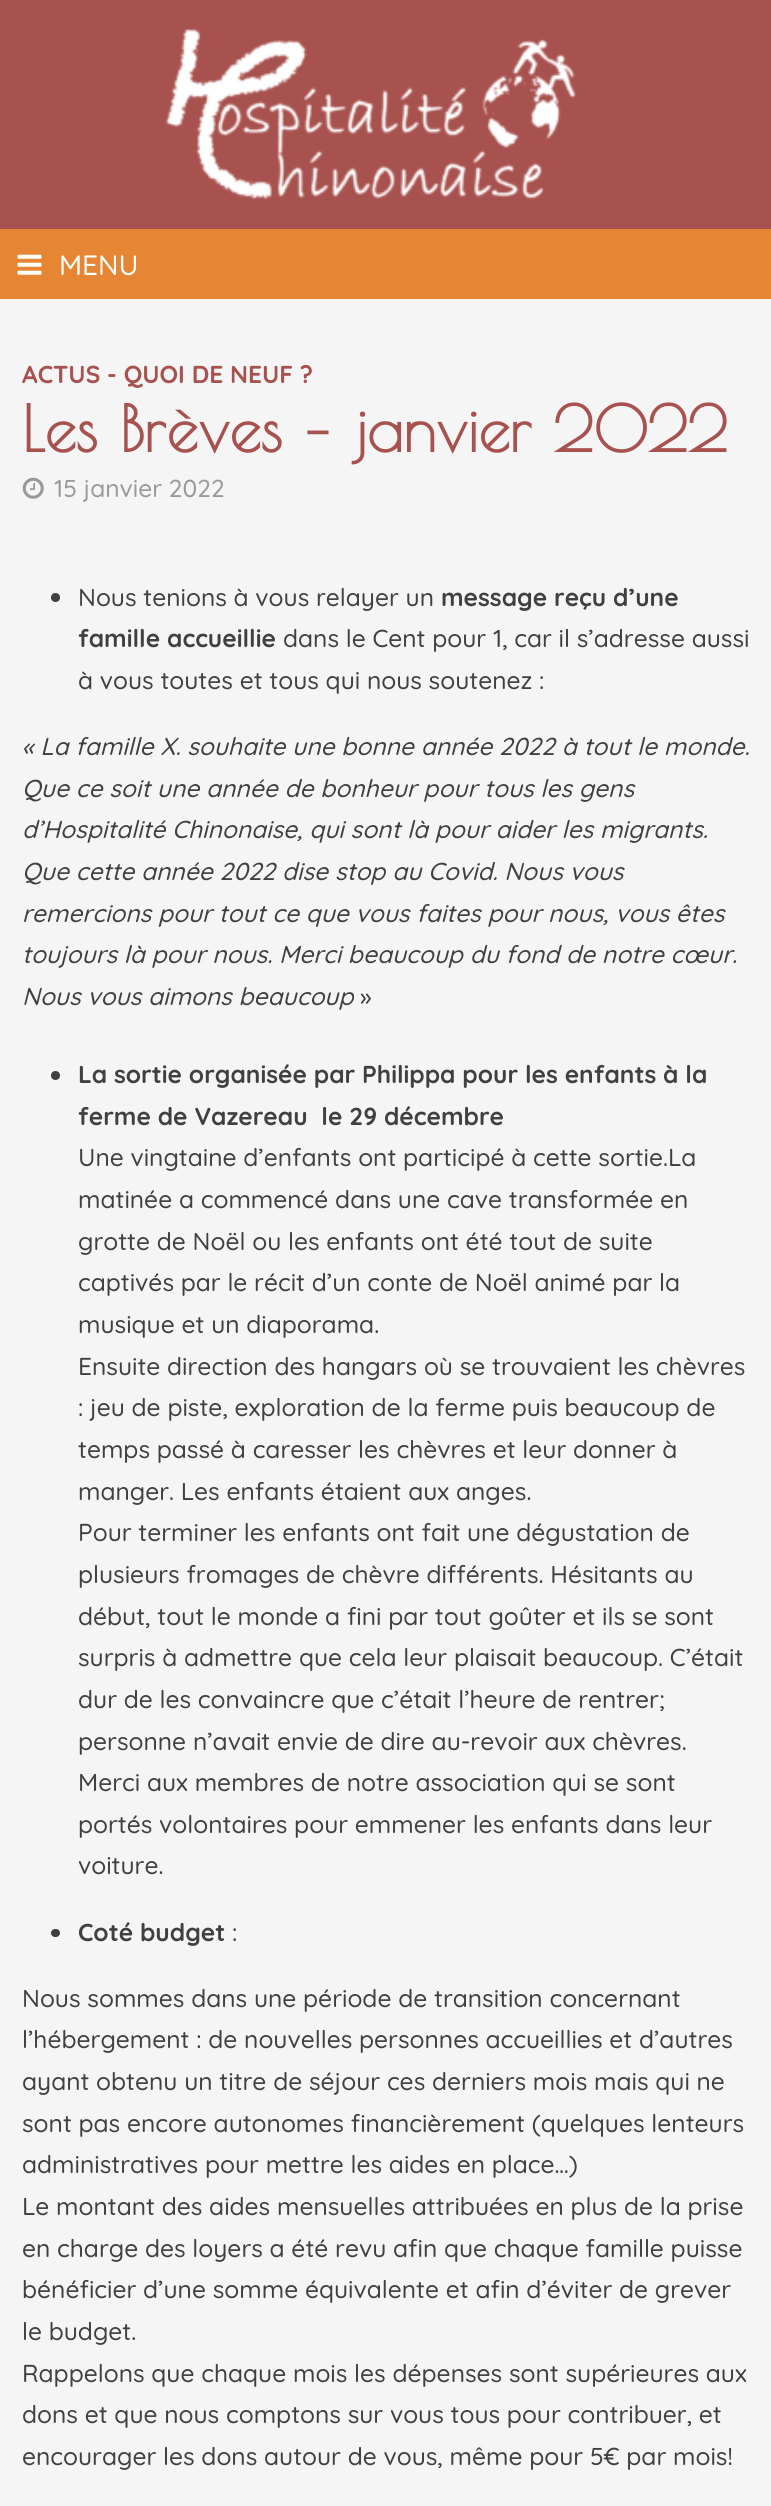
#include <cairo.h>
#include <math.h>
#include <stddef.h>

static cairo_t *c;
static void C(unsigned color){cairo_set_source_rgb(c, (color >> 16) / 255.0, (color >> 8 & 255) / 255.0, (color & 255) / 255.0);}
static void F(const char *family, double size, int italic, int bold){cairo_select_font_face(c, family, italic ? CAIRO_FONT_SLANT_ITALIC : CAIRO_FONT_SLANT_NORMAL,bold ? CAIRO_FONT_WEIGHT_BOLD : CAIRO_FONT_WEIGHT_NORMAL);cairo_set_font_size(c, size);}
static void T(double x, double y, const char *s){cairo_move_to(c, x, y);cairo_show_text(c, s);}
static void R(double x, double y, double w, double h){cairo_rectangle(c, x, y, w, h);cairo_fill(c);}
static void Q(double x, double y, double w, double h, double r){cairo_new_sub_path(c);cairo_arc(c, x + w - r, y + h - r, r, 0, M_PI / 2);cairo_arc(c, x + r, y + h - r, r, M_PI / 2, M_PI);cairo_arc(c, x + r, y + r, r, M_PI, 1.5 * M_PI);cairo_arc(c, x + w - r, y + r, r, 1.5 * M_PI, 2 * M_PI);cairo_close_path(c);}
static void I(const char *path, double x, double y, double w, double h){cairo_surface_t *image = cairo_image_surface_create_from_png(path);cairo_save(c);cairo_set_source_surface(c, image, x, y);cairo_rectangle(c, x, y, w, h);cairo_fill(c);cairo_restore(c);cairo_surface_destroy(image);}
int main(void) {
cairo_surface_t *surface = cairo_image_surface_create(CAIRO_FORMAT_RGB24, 771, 2506);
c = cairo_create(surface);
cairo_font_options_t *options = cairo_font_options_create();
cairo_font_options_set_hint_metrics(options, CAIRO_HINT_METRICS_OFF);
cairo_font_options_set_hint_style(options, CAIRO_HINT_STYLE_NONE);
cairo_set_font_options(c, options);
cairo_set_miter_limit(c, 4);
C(0xf5f5f5);
cairo_paint(c);
C(0xa8524f);
R(0,0,771,229);
I("1.png",165,28,412,172);
C(0xe68634);
R(0,229,771,70);
I("2.png",17,254,25,21);
F("Quicksand Medium",28,0,0);
C(0xffffff);
T(59,275,"MENU");
F("Quicksand",24.5,0,1);
C(0xa8524f);
T(22,383,"ACTUS - QUOI DE NEUF ?");
F("Poiret One",63,0,1);
T(22,452,"Les Brèves – janvier 2022");
I("3.png",22,477,22,22);
F("Quicksand Medium",24.5,0,0);
C(0x999999);
T(54,497,"15 janvier 2022");
C(0x404040);
cairo_new_path(c);
cairo_arc(c,55.5,597.5,4.5,0,2 * M_PI);
cairo_fill(c);
T(78,606,"Nous tenions à vous relayer un");
F("Quicksand",24.5,0,1);
T(441,606,"message reçu d’une");
T(78,647,"famille accueillie");
F("Quicksand Medium",24.5,0,0);
T(283,647,"dans le Cent pour 1, car il s’adresse aussi");
T(78,689,"à vous toutes et tous qui nous soutenez :");
F("Quicksand Medium",24.5,1,0);
T(22,755,"« La famille X. souhaite une bonne année 2022 à tout le monde.");
T(22,797,"Que ce soit une année de bonheur pour tous les gens");
T(22,838,"d’Hospitalité Chinonaise, qui sont là pour aider les migrants.");
T(22,880,"Que cette année 2022 dise stop au Covid. Nous vous");
T(22,922,"remercions pour tout ce que vous faites pour nous, vous êtes");
T(22,963,"toujours là pour nous. Merci beaucoup du fond de notre cœur.");
T(22,1005,"Nous vous aimons beaucoup");
F("Quicksand Medium",24.5,0,0);
T(360,1005,"»");
cairo_new_path(c);
cairo_arc(c,55.5,1075.5,4.5,0,2 * M_PI);
cairo_fill(c);
F("Quicksand",24.5,0,1);
T(78,1083,"La sortie organisée par Philippa pour les enfants à la");
T(78,1125,"ferme de Vazereau  le 29 décembre");
F("Quicksand Medium",24.5,0,0);
T(78,1166,"Une vingtaine d’enfants ont participé à cette sortie.La");
T(78,1208,"matinée a commencé dans une cave transformée en");
T(78,1250,"grotte de Noël ou les enfants ont été tout de suite");
T(78,1291,"captivés par le récit d’un conte de Noël animé par la");
T(78,1333,"musique et un diaporama.");
T(78,1375,"Ensuite direction des hangars où se trouvaient les chèvres");
T(78,1416,": jeu de piste, exploration de la ferme puis beaucoup de");
T(78,1458,"temps passé à caresser les chèvres et leur donner à");
T(78,1500,"manger. Les enfants étaient aux anges.");
T(78,1541,"Pour terminer les enfants ont fait une dégustation de");
T(78,1583,"plusieurs fromages de chèvre différents. Hésitants au");
T(78,1625,"début, tout le monde a fini par tout goûter et ils se sont");
T(78,1666,"surpris à admettre que cela leur plaisait beaucoup. C’était");
T(78,1708,"dur de les convaincre que c’était l’heure de rentrer;");
T(78,1750,"personne n’avait envie de dire au-revoir aux chèvres.");
T(78,1791,"Merci aux membres de notre association qui se sont");
T(78,1833,"portés volontaires pour emmener les enfants dans leur");
T(78,1874,"voiture.");
Q(51,1929,9,8,4);
cairo_fill(c);
F("Quicksand",24.5,0,1);
T(78,1941,"Coté budget");
F("Quicksand Medium",24.5,0,0);
T(232,1941,":");
T(22,2007,"Nous sommes dans une période de transition concernant");
T(22,2048,"l’hébergement : de nouvelles personnes accueillies et d’autres");
T(22,2090,"ayant obtenu un titre de séjour ces derniers mois mais qui ne");
T(22,2132,"sont pas encore autonomes financièrement (quelques lenteurs");
T(22,2173,"administratives pour mettre les aides en place…)");
T(22,2215,"Le montant des aides mensuelles attribuées en plus de la prise");
T(22,2257,"en charge des loyers a été revu afin que chaque famille puisse");
T(22,2298,"bénéficier d’une somme équivalente et afin d’éviter de grever");
T(22,2340,"le budget.");
T(22,2382,"Rappelons que chaque mois les dépenses sont supérieures aux");
T(22,2423,"dons et que nous comptons sur vous tous pour contribuer, et");
T(22,2465,"encourager les dons autour de vous, même pour 5€ par mois!");
cairo_surface_write_to_png(surface, "o.png");
cairo_font_options_destroy(options);
cairo_destroy(c);
cairo_surface_destroy(surface);
return 0;
}
